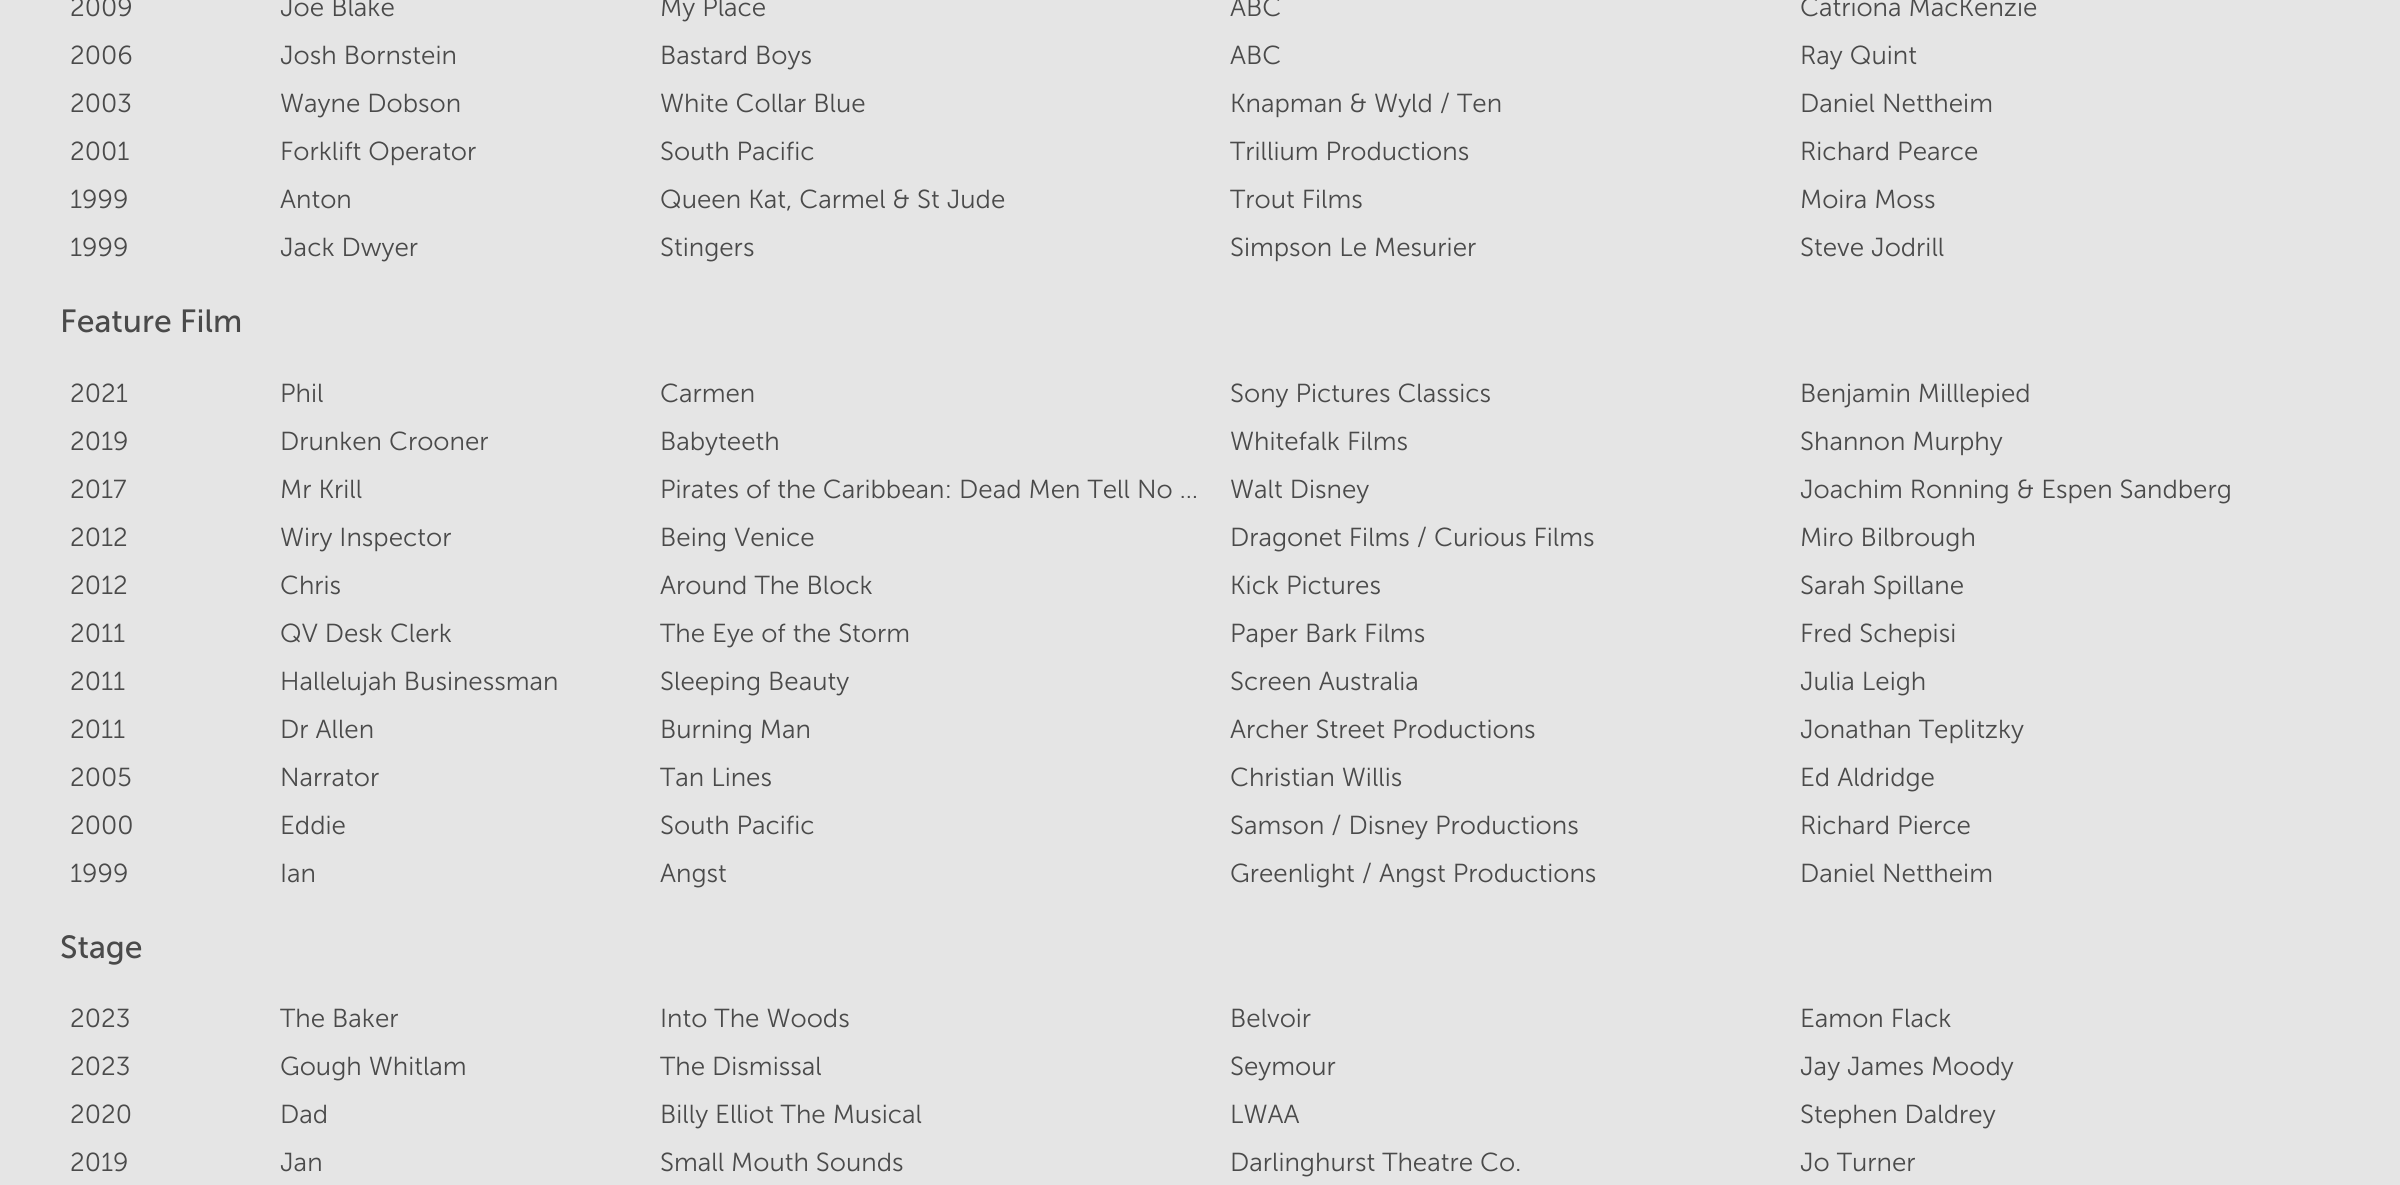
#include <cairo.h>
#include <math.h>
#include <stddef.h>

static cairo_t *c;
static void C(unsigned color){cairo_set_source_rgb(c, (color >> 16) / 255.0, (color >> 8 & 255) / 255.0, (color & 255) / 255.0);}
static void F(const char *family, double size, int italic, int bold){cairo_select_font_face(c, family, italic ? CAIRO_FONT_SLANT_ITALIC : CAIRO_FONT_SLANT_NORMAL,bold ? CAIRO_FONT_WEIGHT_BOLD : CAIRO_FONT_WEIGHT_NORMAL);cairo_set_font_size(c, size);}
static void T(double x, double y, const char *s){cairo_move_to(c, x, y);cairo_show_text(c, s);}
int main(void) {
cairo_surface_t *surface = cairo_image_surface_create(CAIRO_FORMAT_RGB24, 2400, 1185);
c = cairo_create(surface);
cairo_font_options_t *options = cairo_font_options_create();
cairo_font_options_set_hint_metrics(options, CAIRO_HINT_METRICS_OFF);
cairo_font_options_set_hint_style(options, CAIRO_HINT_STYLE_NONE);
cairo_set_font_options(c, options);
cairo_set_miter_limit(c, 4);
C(0xe5e5e5);
cairo_paint(c);
F("Museo Sans Light",26,0,0);
C(0x4a4a4a);
T(70,16,"2009");
T(280,16,"Joe Blake");
T(660,16,"My Place");
T(1230,16,"ABC");
T(1800,16,"Catriona MacKenzie");
T(70,64,"2006");
T(280,64,"Josh Bornstein");
T(660,64,"Bastard Boys");
T(1230,64,"ABC");
T(1800,64,"Ray Quint");
T(70,112,"2003");
T(280,112,"Wayne Dobson");
T(660,112,"White Collar Blue");
T(1230,112,"Knapman & Wyld / Ten");
T(1800,112,"Daniel Nettheim");
T(70,160,"2001");
T(280,160,"Forklift Operator");
T(660,160,"South Pacific");
T(1230,160,"Trillium Productions");
T(1800,160,"Richard Pearce");
T(70,208,"1999");
T(280,208,"Anton");
T(660,208,"Queen Kat, Carmel & St Jude");
T(1230,208,"Trout Films");
T(1800,208,"Moira Moss");
T(70,256,"1999");
T(280,256,"Jack Dwyer");
T(660,256,"Stingers");
T(1230,256,"Simpson Le Mesurier");
T(1800,256,"Steve Jodrill");
F("Museo Sans",32,0,0);
T(60,332,"Feature Film");
F("Museo Sans Light",26,0,0);
T(70,402,"2021");
T(280,402,"Phil");
T(660,402,"Carmen");
T(1230,402,"Sony Pictures Classics");
T(1800,402,"Benjamin Milllepied");
T(70,450,"2019");
T(280,450,"Drunken Crooner");
T(660,450,"Babyteeth");
T(1230,450,"Whitefalk Films");
T(1800,450,"Shannon Murphy");
T(70,498,"2017");
T(280,498,"Mr Krill");
T(660,498,"Pirates of the Caribbean: Dead Men Tell No …");
T(1230,498,"Walt Disney");
T(1800,498,"Joachim Ronning & Espen Sandberg");
T(70,546,"2012");
T(280,546,"Wiry Inspector");
T(660,546,"Being Venice");
T(1230,546,"Dragonet Films / Curious Films");
T(1800,546,"Miro Bilbrough");
T(70,594,"2012");
T(280,594,"Chris");
T(660,594,"Around The Block");
T(1230,594,"Kick Pictures");
T(1800,594,"Sarah Spillane");
T(70,642,"2011");
T(280,642,"QV Desk Clerk");
T(660,642,"The Eye of the Storm");
T(1230,642,"Paper Bark Films");
T(1800,642,"Fred Schepisi");
T(70,690,"2011");
T(280,690,"Hallelujah Businessman");
T(660,690,"Sleeping Beauty");
T(1230,690,"Screen Australia");
T(1800,690,"Julia Leigh");
T(70,738,"2011");
T(280,738,"Dr Allen");
T(660,738,"Burning Man");
T(1230,738,"Archer Street Productions");
T(1800,738,"Jonathan Teplitzky");
T(70,786,"2005");
T(280,786,"Narrator");
T(660,786,"Tan Lines");
T(1230,786,"Christian Willis");
T(1800,786,"Ed Aldridge");
T(70,834,"2000");
T(280,834,"Eddie");
T(660,834,"South Pacific");
T(1230,834,"Samson / Disney Productions");
T(1800,834,"Richard Pierce");
T(70,882,"1999");
T(280,882,"Ian");
T(660,882,"Angst");
T(1230,882,"Greenlight / Angst Productions");
T(1800,882,"Daniel Nettheim");
F("Museo Sans",32,0,0);
T(60,958,"Stage");
F("Museo Sans Light",26,0,0);
T(70,1027,"2023");
T(280,1027,"The Baker");
T(660,1027,"Into The Woods");
T(1230,1027,"Belvoir");
T(1800,1027,"Eamon Flack");
T(70,1075,"2023");
T(280,1075,"Gough Whitlam");
T(660,1075,"The Dismissal");
T(1230,1075,"Seymour");
T(1800,1075,"Jay James Moody");
T(70,1123,"2020");
T(280,1123,"Dad");
T(660,1123,"Billy Elliot The Musical");
T(1230,1123,"LWAA");
T(1800,1123,"Stephen Daldrey");
T(70,1171,"2019");
T(280,1171,"Jan");
T(660,1171,"Small Mouth Sounds");
T(1230,1171,"Darlinghurst Theatre Co.");
T(1800,1171,"Jo Turner");
cairo_surface_write_to_png(surface, "o.png");
cairo_font_options_destroy(options);
cairo_destroy(c);
cairo_surface_destroy(surface);
return 0;
}
